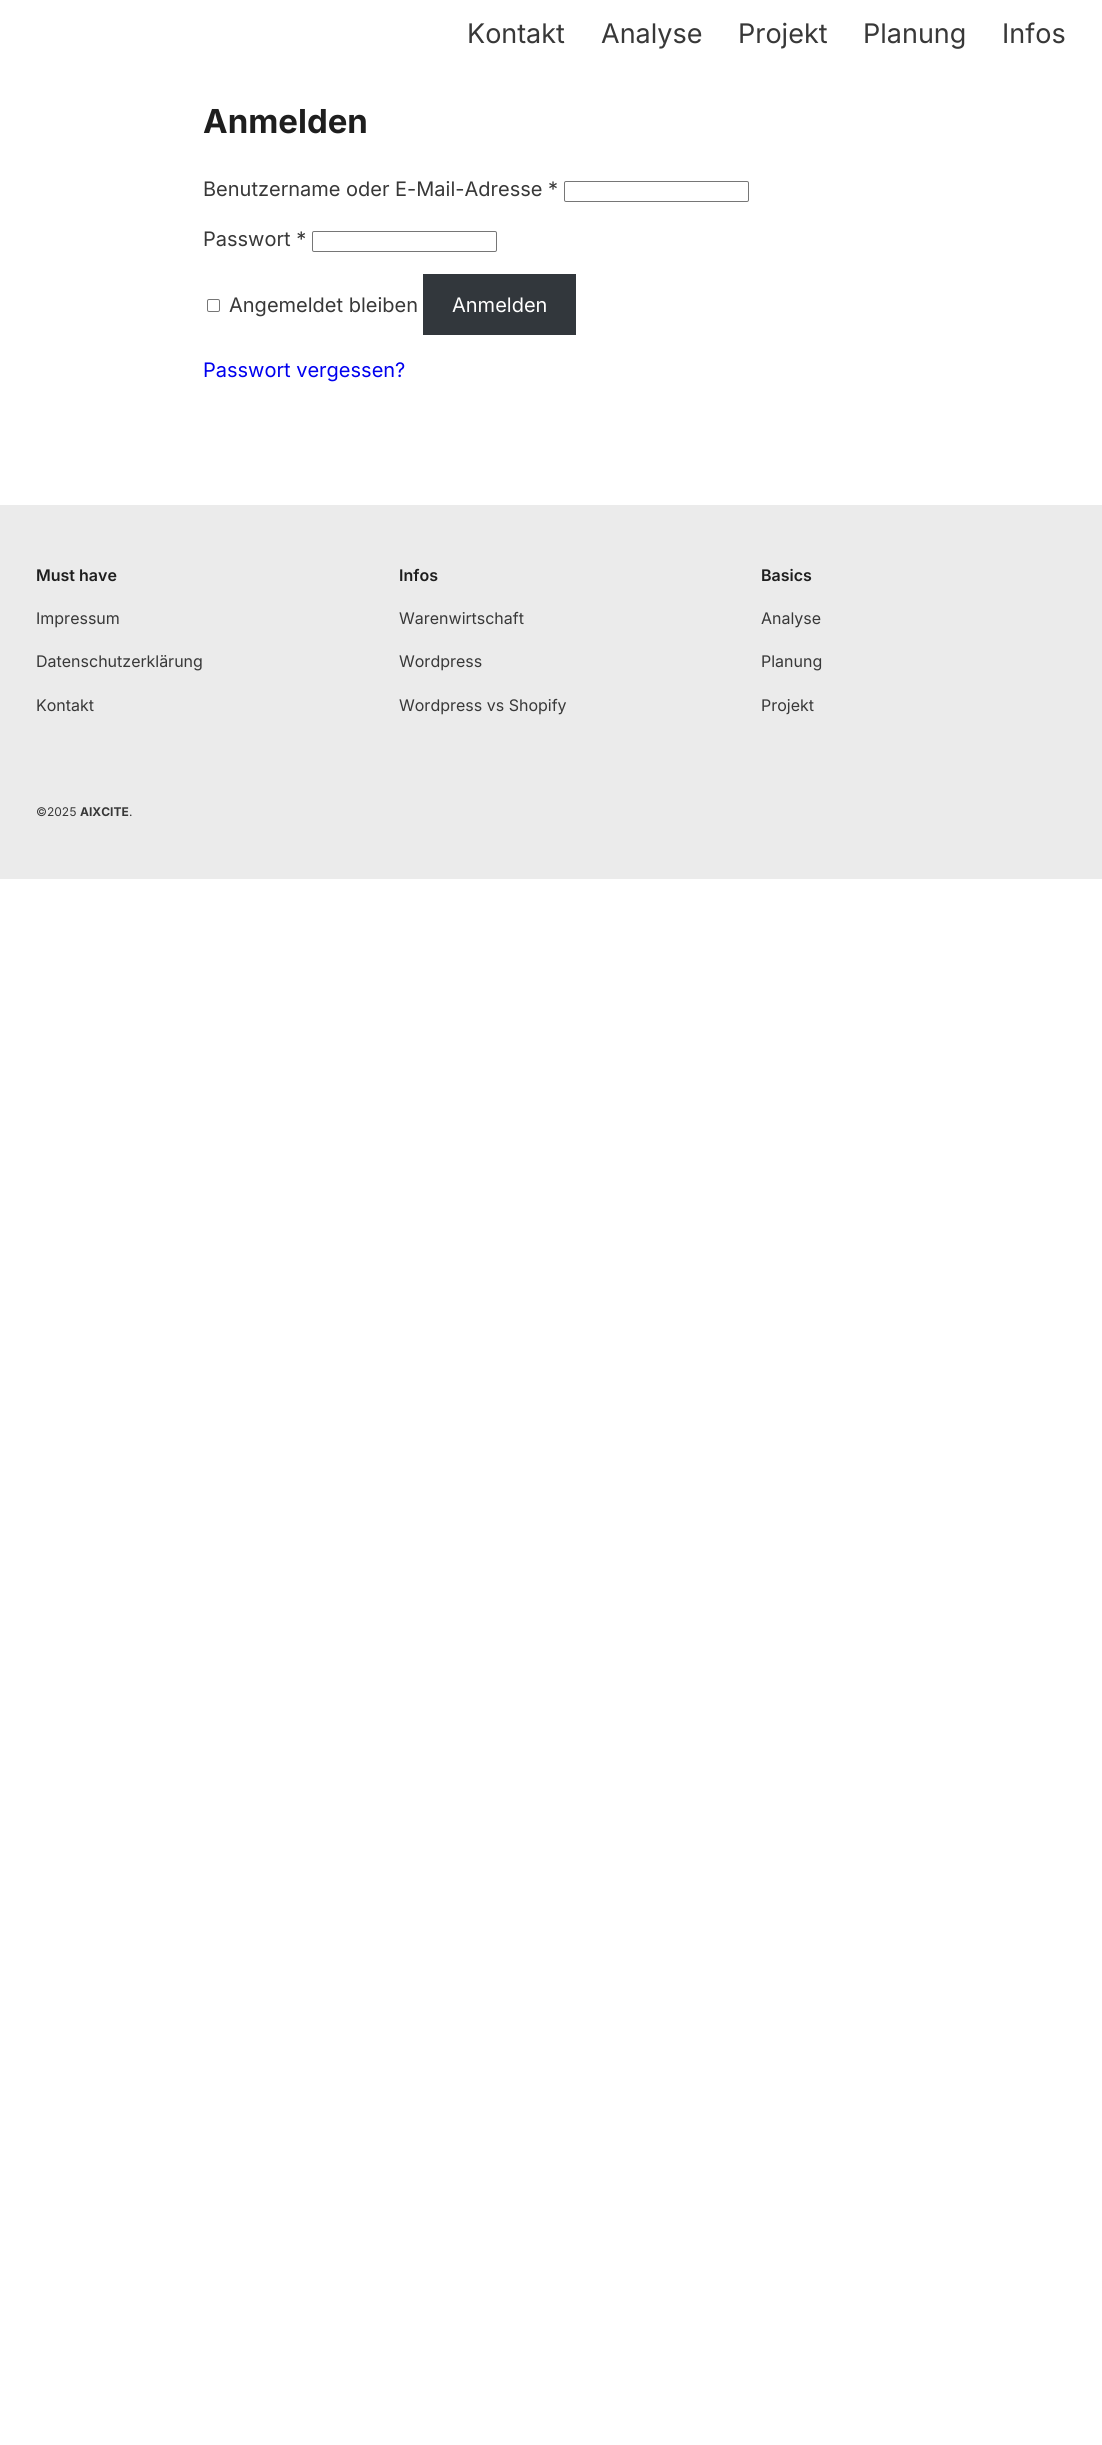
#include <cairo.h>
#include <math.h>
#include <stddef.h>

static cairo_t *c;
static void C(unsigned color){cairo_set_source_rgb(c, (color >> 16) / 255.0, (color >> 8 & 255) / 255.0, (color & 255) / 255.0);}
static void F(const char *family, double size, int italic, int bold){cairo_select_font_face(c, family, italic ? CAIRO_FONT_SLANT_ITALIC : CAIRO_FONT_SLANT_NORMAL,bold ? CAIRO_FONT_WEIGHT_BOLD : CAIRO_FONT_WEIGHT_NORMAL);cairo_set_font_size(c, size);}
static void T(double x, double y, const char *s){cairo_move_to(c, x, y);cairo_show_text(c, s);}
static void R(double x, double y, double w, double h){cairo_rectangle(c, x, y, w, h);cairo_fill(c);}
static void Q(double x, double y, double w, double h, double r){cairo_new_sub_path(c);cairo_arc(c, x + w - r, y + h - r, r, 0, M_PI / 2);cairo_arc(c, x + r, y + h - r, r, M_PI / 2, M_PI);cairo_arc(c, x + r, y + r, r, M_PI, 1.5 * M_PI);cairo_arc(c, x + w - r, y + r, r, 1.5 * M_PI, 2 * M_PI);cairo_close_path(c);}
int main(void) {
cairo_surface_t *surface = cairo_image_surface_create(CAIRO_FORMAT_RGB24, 1102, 2445);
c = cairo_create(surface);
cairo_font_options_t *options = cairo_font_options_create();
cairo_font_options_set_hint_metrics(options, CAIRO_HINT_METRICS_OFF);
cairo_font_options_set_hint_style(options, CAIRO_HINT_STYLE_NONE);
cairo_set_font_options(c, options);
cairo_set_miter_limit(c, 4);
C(0xffffff);
cairo_paint(c);
F("Inter",27,0,0);
C(0x383838);
T(467,43,"Kontakt");
T(601,43,"Analyse");
T(738,43,"Projekt");
T(863,43,"Planung");
T(1002,43,"Infos");
F("Inter",33,0,1);
C(0x1e1e1e);
T(203,133,"Anmelden");
F("Inter",20,0,0);
C(0x383838);
T(203,196,"Benutzername oder E-Mail-Adresse *");
Q(564.5,181.5,184,20,1.5);
C(0x767676);
cairo_set_line_width(c,1);
cairo_stroke(c);
C(0x383838);
T(203,246,"Passwort *");
Q(312.5,231.5,184,20,1.5);
C(0x767676);
cairo_stroke(c);
Q(207.5,299.5,12,12,1.5);
cairo_stroke(c);
C(0x383838);
T(229,312,"Angemeldet bleiben");
C(0x32373c);
R(423,274,153,61);
C(0xffffff);
T(452,312,"Anmelden");
C(0x0000ee);
T(203,377,"Passwort vergessen?");
C(0xebebeb);
R(0,505,1102,374);
F("Inter SemiBold",16,0,0);
C(0x1e1e1e);
T(36,581,"Must have");
F("Inter",16,0,0);
C(0x383838);
T(36,624,"Impressum");
T(36,667,"Datenschutzerklärung");
T(36,711,"Kontakt");
F("Inter SemiBold",16,0,0);
C(0x1e1e1e);
T(399,581,"Infos");
F("Inter",16,0,0);
C(0x383838);
T(399,624,"Warenwirtschaft");
T(399,667,"Wordpress");
T(399,711,"Wordpress vs Shopify");
F("Inter SemiBold",16,0,0);
C(0x1e1e1e);
T(761,581,"Basics");
F("Inter",16,0,0);
C(0x383838);
T(761,624,"Analyse");
T(761,667,"Planung");
T(761,711,"Projekt");
F("Inter",12,0,0);
T(36,816,"©2025");
F("Inter",12,0,1);
T(80,816,"AIXCITE");
F("Inter",12,0,0);
T(129,816,".");
cairo_surface_write_to_png(surface, "o.png");
cairo_font_options_destroy(options);
cairo_destroy(c);
cairo_surface_destroy(surface);
return 0;
}
